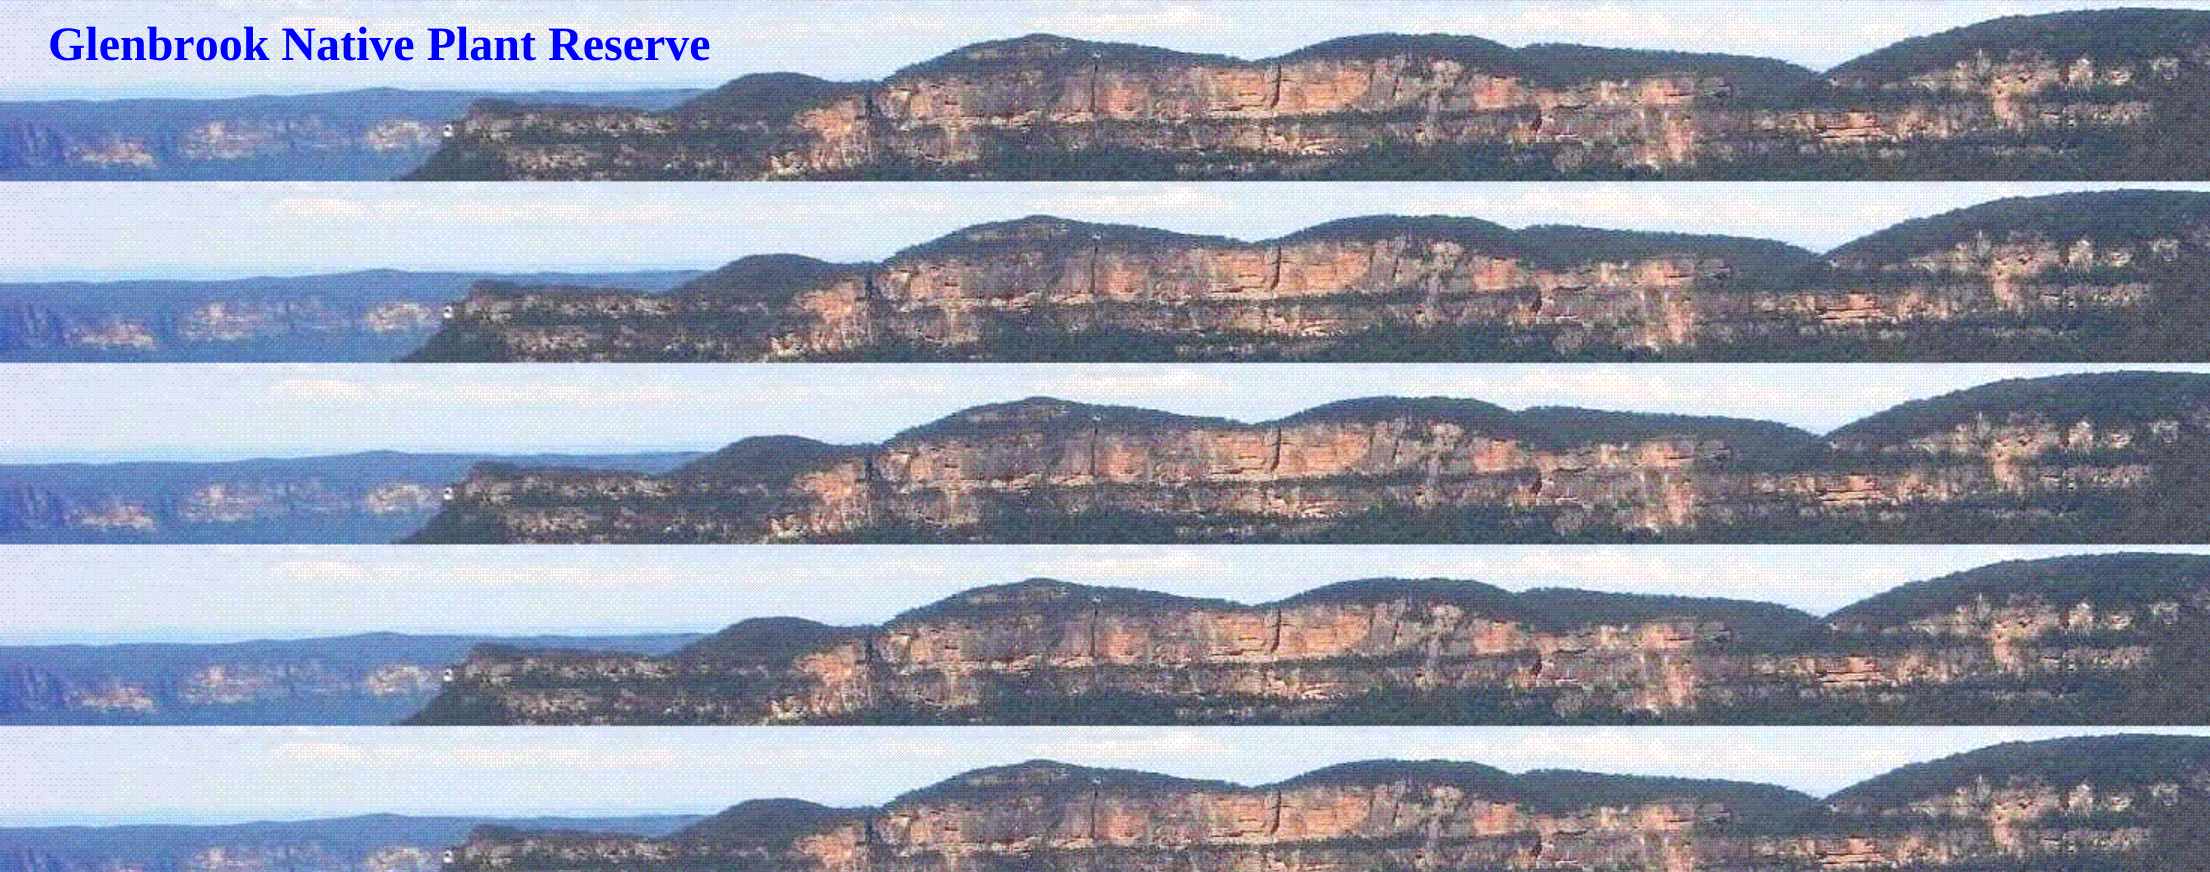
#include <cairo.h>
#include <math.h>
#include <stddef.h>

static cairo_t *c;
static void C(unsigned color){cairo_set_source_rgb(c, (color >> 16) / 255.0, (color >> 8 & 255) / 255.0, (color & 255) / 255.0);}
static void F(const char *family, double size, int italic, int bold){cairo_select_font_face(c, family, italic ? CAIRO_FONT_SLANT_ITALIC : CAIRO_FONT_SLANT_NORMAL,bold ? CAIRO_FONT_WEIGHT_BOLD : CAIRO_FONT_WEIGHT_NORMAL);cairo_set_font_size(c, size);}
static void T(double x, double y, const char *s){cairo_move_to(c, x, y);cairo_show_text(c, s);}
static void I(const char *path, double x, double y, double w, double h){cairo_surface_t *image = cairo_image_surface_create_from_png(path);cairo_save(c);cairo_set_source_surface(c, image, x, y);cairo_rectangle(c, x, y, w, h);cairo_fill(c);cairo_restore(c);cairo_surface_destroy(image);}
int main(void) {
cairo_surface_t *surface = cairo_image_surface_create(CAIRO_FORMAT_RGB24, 2210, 872);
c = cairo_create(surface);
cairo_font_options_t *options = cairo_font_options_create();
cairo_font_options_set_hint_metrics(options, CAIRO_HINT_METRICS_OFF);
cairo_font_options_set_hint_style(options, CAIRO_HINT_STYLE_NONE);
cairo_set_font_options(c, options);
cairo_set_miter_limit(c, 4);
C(0xffffff);
cairo_paint(c);
I("1.png",0,0,2210,872);
F("Liberation Serif",48,0,1);
C(0x0000ff);
T(48,60,"Glenbrook Native Plant Reserve");
cairo_surface_write_to_png(surface, "o.png");
cairo_font_options_destroy(options);
cairo_destroy(c);
cairo_surface_destroy(surface);
return 0;
}
